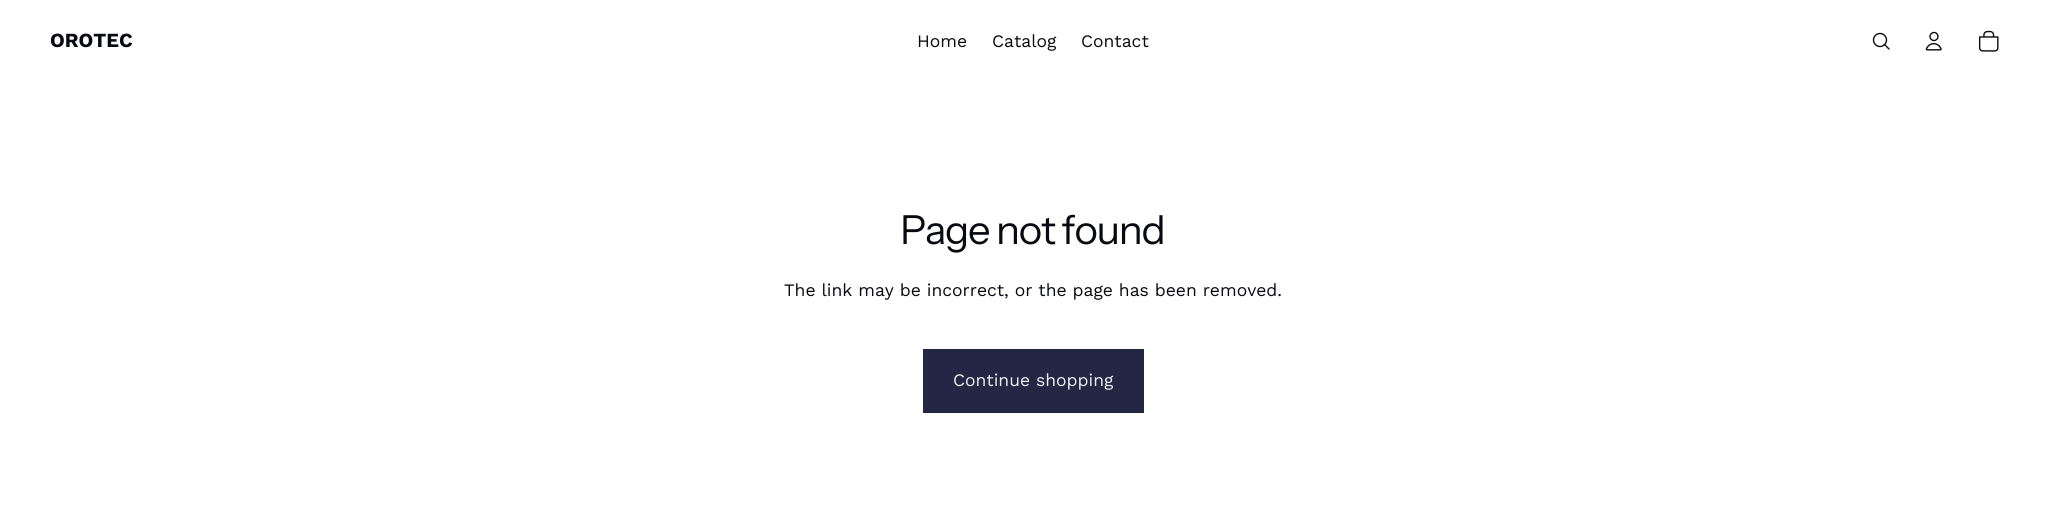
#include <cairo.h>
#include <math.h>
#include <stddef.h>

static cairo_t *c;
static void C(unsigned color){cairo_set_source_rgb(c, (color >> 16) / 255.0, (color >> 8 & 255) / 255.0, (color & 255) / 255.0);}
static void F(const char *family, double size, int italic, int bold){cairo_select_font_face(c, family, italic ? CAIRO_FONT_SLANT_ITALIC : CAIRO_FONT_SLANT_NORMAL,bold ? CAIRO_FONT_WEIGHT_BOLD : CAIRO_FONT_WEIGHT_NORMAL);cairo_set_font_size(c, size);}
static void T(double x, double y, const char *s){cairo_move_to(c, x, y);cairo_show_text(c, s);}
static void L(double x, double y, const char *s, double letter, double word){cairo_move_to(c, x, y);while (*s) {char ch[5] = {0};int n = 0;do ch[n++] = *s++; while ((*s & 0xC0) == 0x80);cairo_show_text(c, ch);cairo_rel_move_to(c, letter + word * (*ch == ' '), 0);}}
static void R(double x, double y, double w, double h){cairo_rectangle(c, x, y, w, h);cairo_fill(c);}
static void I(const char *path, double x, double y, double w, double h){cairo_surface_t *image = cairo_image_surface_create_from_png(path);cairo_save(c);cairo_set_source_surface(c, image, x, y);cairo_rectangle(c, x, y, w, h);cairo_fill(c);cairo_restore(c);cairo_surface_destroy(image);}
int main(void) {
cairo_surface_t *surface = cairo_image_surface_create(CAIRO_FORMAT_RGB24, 2066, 520);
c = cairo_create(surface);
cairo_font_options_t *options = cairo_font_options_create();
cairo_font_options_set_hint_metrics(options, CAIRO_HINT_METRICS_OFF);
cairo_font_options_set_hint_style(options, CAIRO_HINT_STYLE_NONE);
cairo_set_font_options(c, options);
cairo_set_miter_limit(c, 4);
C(0xffffff);
cairo_paint(c);
F("Work Sans",20,0,1);
C(0x090a11);
T(50,47,"OROTEC");
F("Work Sans",17.5,0,0);
T(917,47,"Home");
T(992,47,"Catalog");
T(1081,47,"Contact");
cairo_new_path(c);
cairo_arc(c,1880,40,6.5,0,2 * M_PI);
cairo_set_line_width(c,1.4);
cairo_stroke(c);
cairo_new_path(c);
cairo_move_to(c,1884.5,44.5);
cairo_line_to(c,1889,49);
cairo_set_line_cap(c,CAIRO_LINE_CAP_ROUND);
cairo_set_line_join(c,CAIRO_LINE_JOIN_ROUND);
cairo_stroke(c);
I("1.png",1925,31,17,20);
I("2.png",1978,30,21,22);
F("Instrument Sans",40,0,0);
L(900,244,"Page not found",-1.25,0);
F("Work Sans",17.5,0,0);
T(784,296,"The link may be incorrect, or the page has been removed.");
C(0x232743);
R(923,349,221,64);
C(0xf0f1f4);
T(953,386,"Continue shopping");
cairo_surface_write_to_png(surface, "o.png");
cairo_font_options_destroy(options);
cairo_destroy(c);
cairo_surface_destroy(surface);
return 0;
}
